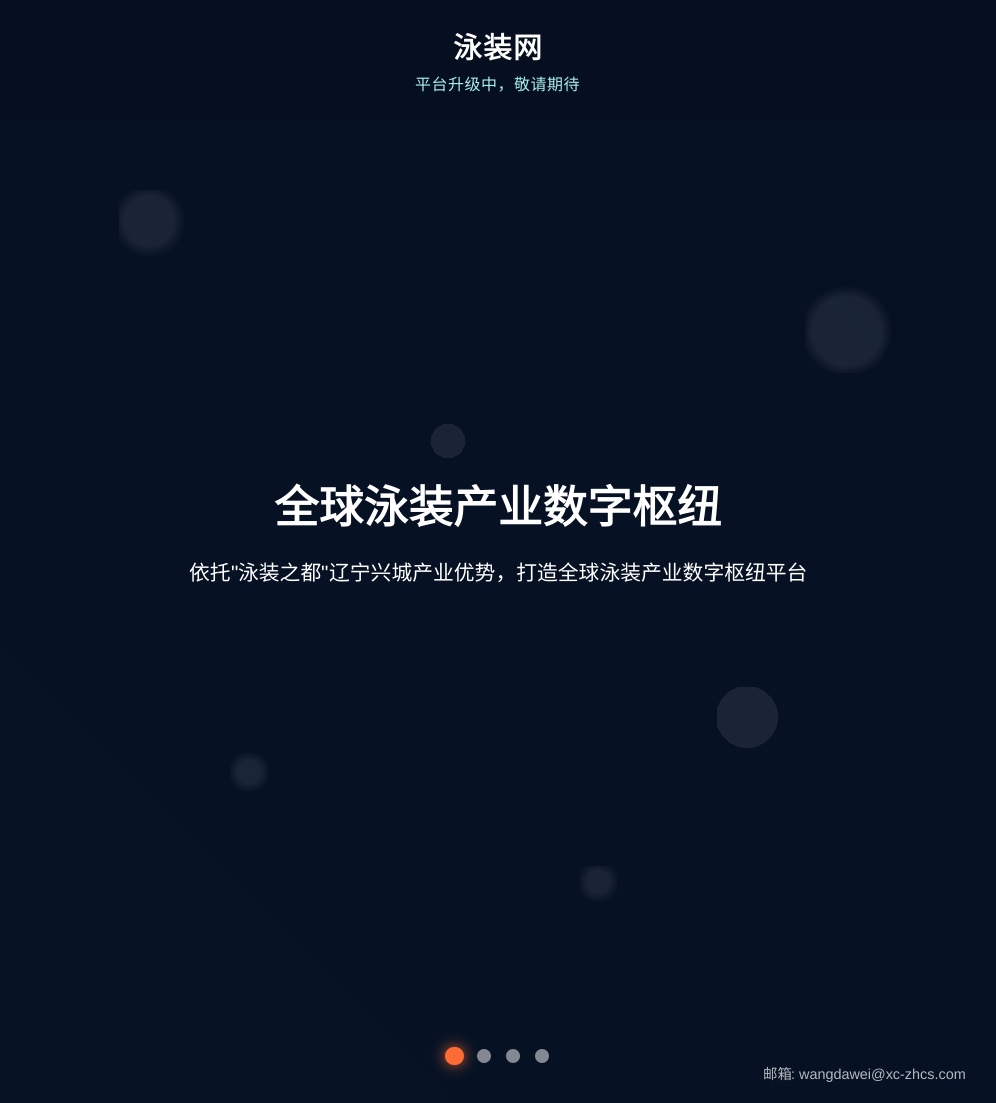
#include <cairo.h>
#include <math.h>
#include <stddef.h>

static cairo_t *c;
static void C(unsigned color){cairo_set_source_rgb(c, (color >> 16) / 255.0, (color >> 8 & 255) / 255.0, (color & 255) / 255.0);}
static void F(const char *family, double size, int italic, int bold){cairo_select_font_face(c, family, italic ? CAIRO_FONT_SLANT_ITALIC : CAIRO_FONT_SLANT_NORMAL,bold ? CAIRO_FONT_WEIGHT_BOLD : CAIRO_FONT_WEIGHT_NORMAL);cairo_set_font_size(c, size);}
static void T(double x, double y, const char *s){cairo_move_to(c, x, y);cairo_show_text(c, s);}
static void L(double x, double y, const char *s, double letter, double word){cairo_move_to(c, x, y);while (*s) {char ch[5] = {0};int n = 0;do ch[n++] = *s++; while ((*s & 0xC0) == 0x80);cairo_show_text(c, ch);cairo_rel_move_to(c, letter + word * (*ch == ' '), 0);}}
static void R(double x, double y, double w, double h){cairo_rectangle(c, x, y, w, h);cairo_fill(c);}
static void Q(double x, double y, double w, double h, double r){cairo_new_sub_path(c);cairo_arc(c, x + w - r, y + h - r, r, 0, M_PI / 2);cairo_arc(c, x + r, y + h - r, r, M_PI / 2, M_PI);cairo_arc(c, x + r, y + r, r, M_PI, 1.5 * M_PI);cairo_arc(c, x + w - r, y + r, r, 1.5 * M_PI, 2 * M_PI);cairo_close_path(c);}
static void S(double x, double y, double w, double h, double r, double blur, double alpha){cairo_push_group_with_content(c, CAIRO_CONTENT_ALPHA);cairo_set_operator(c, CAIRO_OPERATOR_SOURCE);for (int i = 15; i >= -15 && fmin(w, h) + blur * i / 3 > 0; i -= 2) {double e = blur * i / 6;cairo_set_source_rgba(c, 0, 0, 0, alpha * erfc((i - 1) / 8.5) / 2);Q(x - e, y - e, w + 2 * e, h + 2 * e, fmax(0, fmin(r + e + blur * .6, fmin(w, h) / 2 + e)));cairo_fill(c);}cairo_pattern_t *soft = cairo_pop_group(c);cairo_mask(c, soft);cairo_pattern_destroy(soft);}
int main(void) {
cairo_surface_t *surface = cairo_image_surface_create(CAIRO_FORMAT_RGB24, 996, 1103);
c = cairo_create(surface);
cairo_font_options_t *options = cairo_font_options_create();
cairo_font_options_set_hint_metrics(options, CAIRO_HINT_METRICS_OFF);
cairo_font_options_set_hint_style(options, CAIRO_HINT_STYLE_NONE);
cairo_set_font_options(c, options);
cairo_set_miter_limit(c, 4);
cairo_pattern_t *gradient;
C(0xffffff);
cairo_paint(c);
C(0x050f1f);
R(0,0,996,120);
F("Noto Sans CJK SC",29,0,1);
C(0xffffff);
L(453,58,"泳装网",1,0);
F("Noto Sans CJK SC",16,0,0);
C(0xa8edea);
L(415,90,"平台升级中，敬请期待",.5,0);
gradient = cairo_pattern_create_linear(-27,1076,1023,27);
cairo_pattern_add_color_stop_rgba(gradient,0,0.027,0.071,0.145,1);
cairo_pattern_add_color_stop_rgba(gradient,1,0.02,0.063,0.133,1);
cairo_set_source(c,gradient);
cairo_pattern_destroy(gradient);
R(0,120,996,983);
gradient = cairo_pattern_create_radial(598,882,0,598,882,1066);
cairo_pattern_add_color_stop_rgba(gradient,.01,1,1,1,.08);
cairo_pattern_add_color_stop_rgba(gradient,.02,1,1,1,0);
cairo_set_source(c,gradient);
cairo_pattern_destroy(gradient);
R(580,866,37,36);
gradient = cairo_pattern_create_radial(448,441,0,448,441,859);
cairo_pattern_add_color_stop_rgba(gradient,.02,1,1,1,.08);
cairo_pattern_add_color_stop_rgba(gradient,.02,1,1,1,0);
cairo_set_source(c,gradient);
cairo_pattern_destroy(gradient);
R(431,424,34,34);
gradient = cairo_pattern_create_radial(747,717,0,747,717,1035);
cairo_pattern_add_color_stop_rgba(gradient,.03,1,1,1,.08);
cairo_pattern_add_color_stop_rgba(gradient,.03,1,1,1,0);
cairo_set_source(c,gradient);
cairo_pattern_destroy(gradient);
R(717,687,61,61);
gradient = cairo_pattern_create_radial(249,772,0,249,772,1074);
cairo_pattern_add_color_stop_rgba(gradient,.01,1,1,1,.08);
cairo_pattern_add_color_stop_rgba(gradient,.02,1,1,1,0);
cairo_set_source(c,gradient);
cairo_pattern_destroy(gradient);
R(230,753,38,38);
gradient = cairo_pattern_create_radial(847,331,0,847,331,1146);
cairo_pattern_add_color_stop_rgba(gradient,.03,1,1,1,.08);
cairo_pattern_add_color_stop_rgba(gradient,.04,1,1,1,0);
cairo_set_source(c,gradient);
cairo_pattern_destroy(gradient);
R(805,287,86,86);
gradient = cairo_pattern_create_radial(149,221,0,149,221,1223);
cairo_pattern_add_color_stop_rgba(gradient,.02,1,1,1,.08);
cairo_pattern_add_color_stop_rgba(gradient,.03,1,1,1,0);
cairo_set_source(c,gradient);
cairo_pattern_destroy(gradient);
R(119,190,65,66);
F("Noto Sans CJK SC",44.75,0,1);
C(0xffffff);
T(274,523,"全球泳装产业数字枢纽");
F("Noto Sans CJK SC",20.8,0,0);
T(189,580,"依托");
F("Liberation Sans",20.8,0,0);
T(231,580,"\"");
F("Noto Sans CJK SC",20.8,0,0);
T(238,580,"泳装之都");
F("Liberation Sans",20.8,0,0);
T(321,580,"\"");
F("Noto Sans CJK SC",20.8,0,0);
T(329,580,"辽宁兴城产业优势，打造全球泳装产业数字枢纽平台");
C(0x838892);
cairo_new_path(c);
cairo_arc(c,484,1056,7,0,2 * M_PI);
cairo_fill(c);
C(0xff6b35);
S(445,1047,19,18,9,6.5,.6);
C(0xff6b35);
Q(445,1047,19,18,9);
cairo_fill(c);
C(0x838892);
cairo_arc(c,513,1056,7,0,2 * M_PI);
cairo_fill(c);
cairo_arc(c,542,1056,7,0,2 * M_PI);
cairo_fill(c);
F("Noto Sans CJK SC",14.4,0,0);
C(0xb4b8bd);
T(763,1079,"邮箱");
F("Liberation Sans",14.4,0,0);
T(791,1079,": wangdawei@xc-zhcs.com");
cairo_surface_write_to_png(surface, "o.png");
cairo_font_options_destroy(options);
cairo_destroy(c);
cairo_surface_destroy(surface);
return 0;
}
